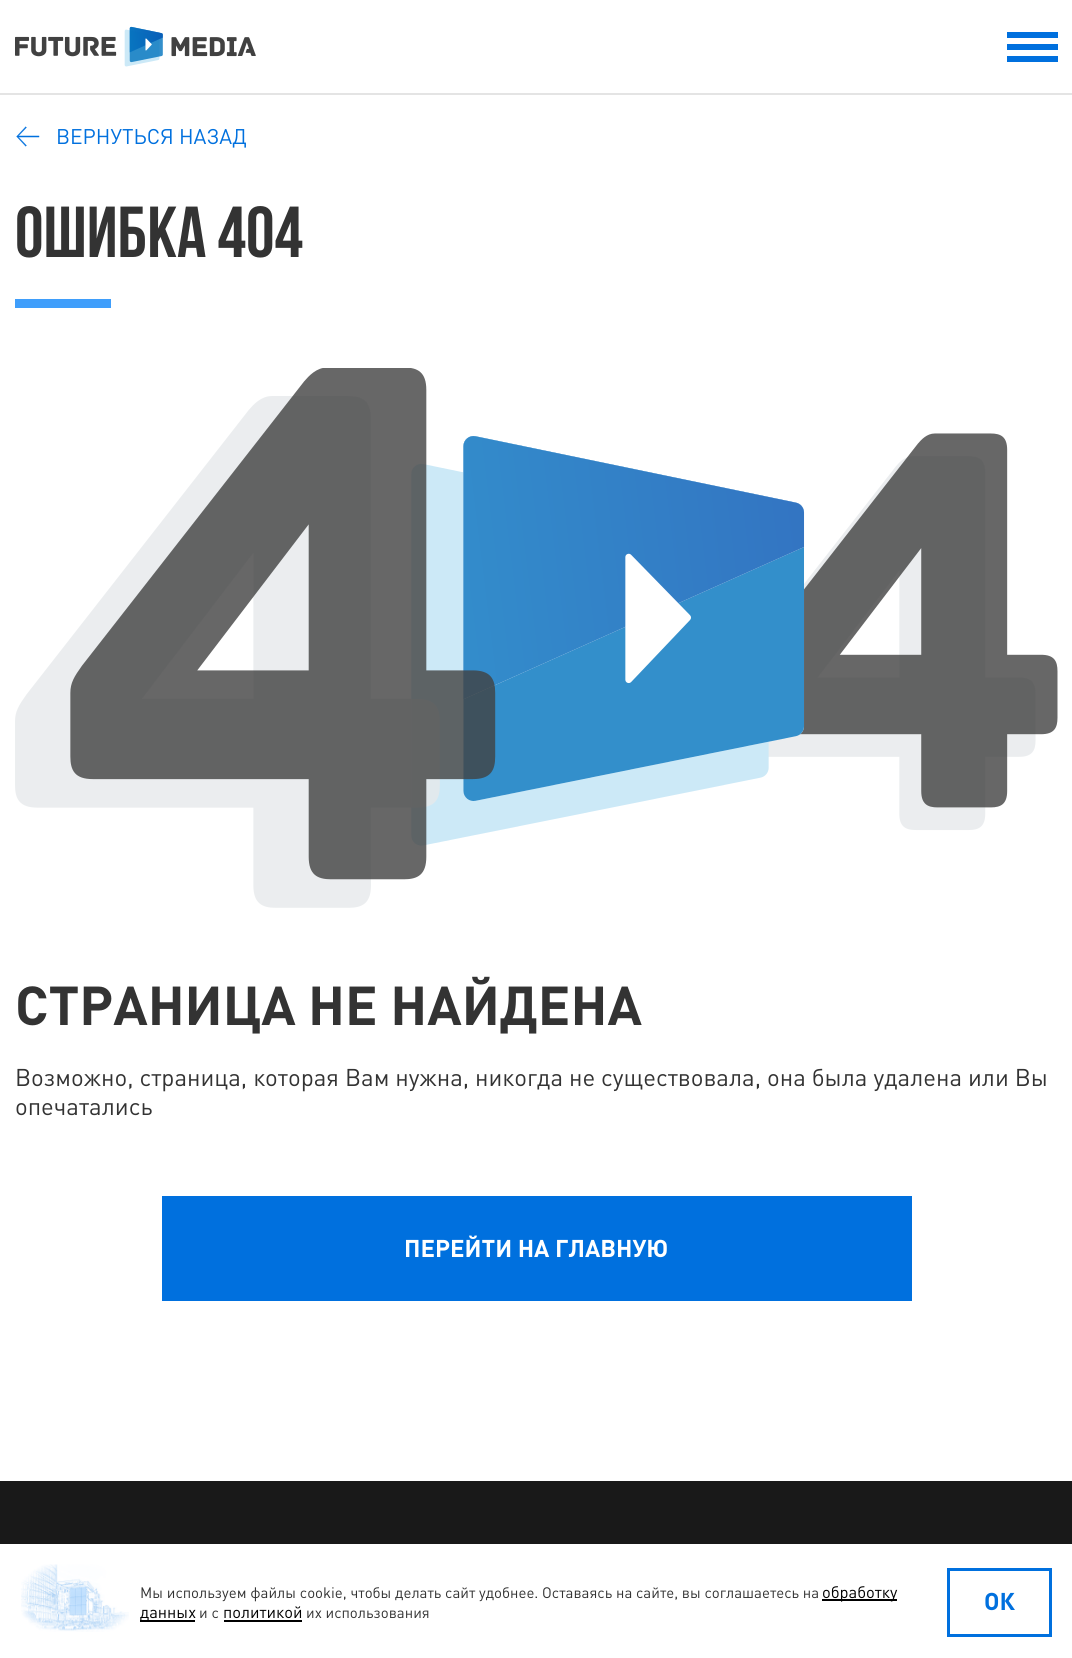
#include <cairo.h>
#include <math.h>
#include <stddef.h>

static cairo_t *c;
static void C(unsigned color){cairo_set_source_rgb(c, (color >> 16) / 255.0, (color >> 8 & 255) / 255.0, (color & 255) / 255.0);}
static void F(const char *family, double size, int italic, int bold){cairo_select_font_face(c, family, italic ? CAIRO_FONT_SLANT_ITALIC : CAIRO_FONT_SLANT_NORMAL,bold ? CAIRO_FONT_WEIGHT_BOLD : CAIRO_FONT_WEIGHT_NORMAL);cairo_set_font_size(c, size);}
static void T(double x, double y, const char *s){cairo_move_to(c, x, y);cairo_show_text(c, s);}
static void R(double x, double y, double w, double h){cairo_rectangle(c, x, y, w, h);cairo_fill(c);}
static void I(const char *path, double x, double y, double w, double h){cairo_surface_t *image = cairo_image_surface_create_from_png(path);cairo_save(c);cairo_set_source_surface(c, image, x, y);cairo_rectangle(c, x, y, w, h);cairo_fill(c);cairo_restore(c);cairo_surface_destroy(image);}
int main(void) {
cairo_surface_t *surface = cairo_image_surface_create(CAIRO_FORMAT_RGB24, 1072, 1658);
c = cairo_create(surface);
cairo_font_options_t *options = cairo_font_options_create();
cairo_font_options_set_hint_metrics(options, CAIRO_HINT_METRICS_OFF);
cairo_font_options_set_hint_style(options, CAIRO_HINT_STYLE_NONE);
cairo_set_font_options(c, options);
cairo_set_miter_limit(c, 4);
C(0xffffff);
cairo_paint(c);
C(0xe4e4e4);
R(0,93,1072,2);
I("1.png",15,26,241,41);
C(0x0070de);
R(1007,44,51,6);
R(1007,32,51,6);
R(1007,56,51,6);
I("2.png",16,126,24,21);
F("DIN",21,0,0);
T(56,144,"ВЕРНУТЬСЯ НАЗАД");
F("Bebas Neue",72,0,1);
C(0x333333);
T(15,257,"ошибка 404");
C(0x3f9efb);
R(15,299,96,9);
I("3.png",15,368,1043,540);
F("DIN",54,0,1);
C(0x333333);
T(15,1025,"СТРАНИЦА НЕ НАЙДЕНА");
F("DIN",24,0,0);
T(15,1086,"Возможно, страница, которая Вам нужна, никогда не существовала, она была удалена или Вы");
T(15,1115,"опечатались");
C(0x0070de);
R(162,1196,750,105);
F("DIN",24,0,1);
C(0xffffff);
T(404,1257,"ПЕРЕЙТИ НА ГЛАВНУЮ");
C(0x191919);
R(0,1481,1072,63);
I("4.png",21,1564,108,68);
F("DIN",15,0,0);
C(0x333333);
T(140,1598,"Мы используем файлы cookie, чтобы делать сайт удобнее. Оставаясь на сайте, вы соглашаетесь на");
C(0x000000);
R(822,1599,75,2);
F("DIN",16.5,0,0);
T(822,1598,"обработку");
R(140,1620,55,2);
T(140,1618,"данных");
F("DIN",15,0,0);
C(0x333333);
T(199,1618,"и с");
F("DIN",16.5,0,0);
C(0x000000);
T(223,1618,"политикой");
R(224,1620,78,2);
F("DIN",15,0,0);
C(0x333333);
T(306,1618,"их использования");
cairo_rectangle(c,948.5,1569.5,102,66);
C(0x0070de);
cairo_set_line_width(c,3);
cairo_stroke(c);
F("DIN",24,0,1);
T(984,1610,"ОК");
cairo_surface_write_to_png(surface, "o.png");
cairo_font_options_destroy(options);
cairo_destroy(c);
cairo_surface_destroy(surface);
return 0;
}
